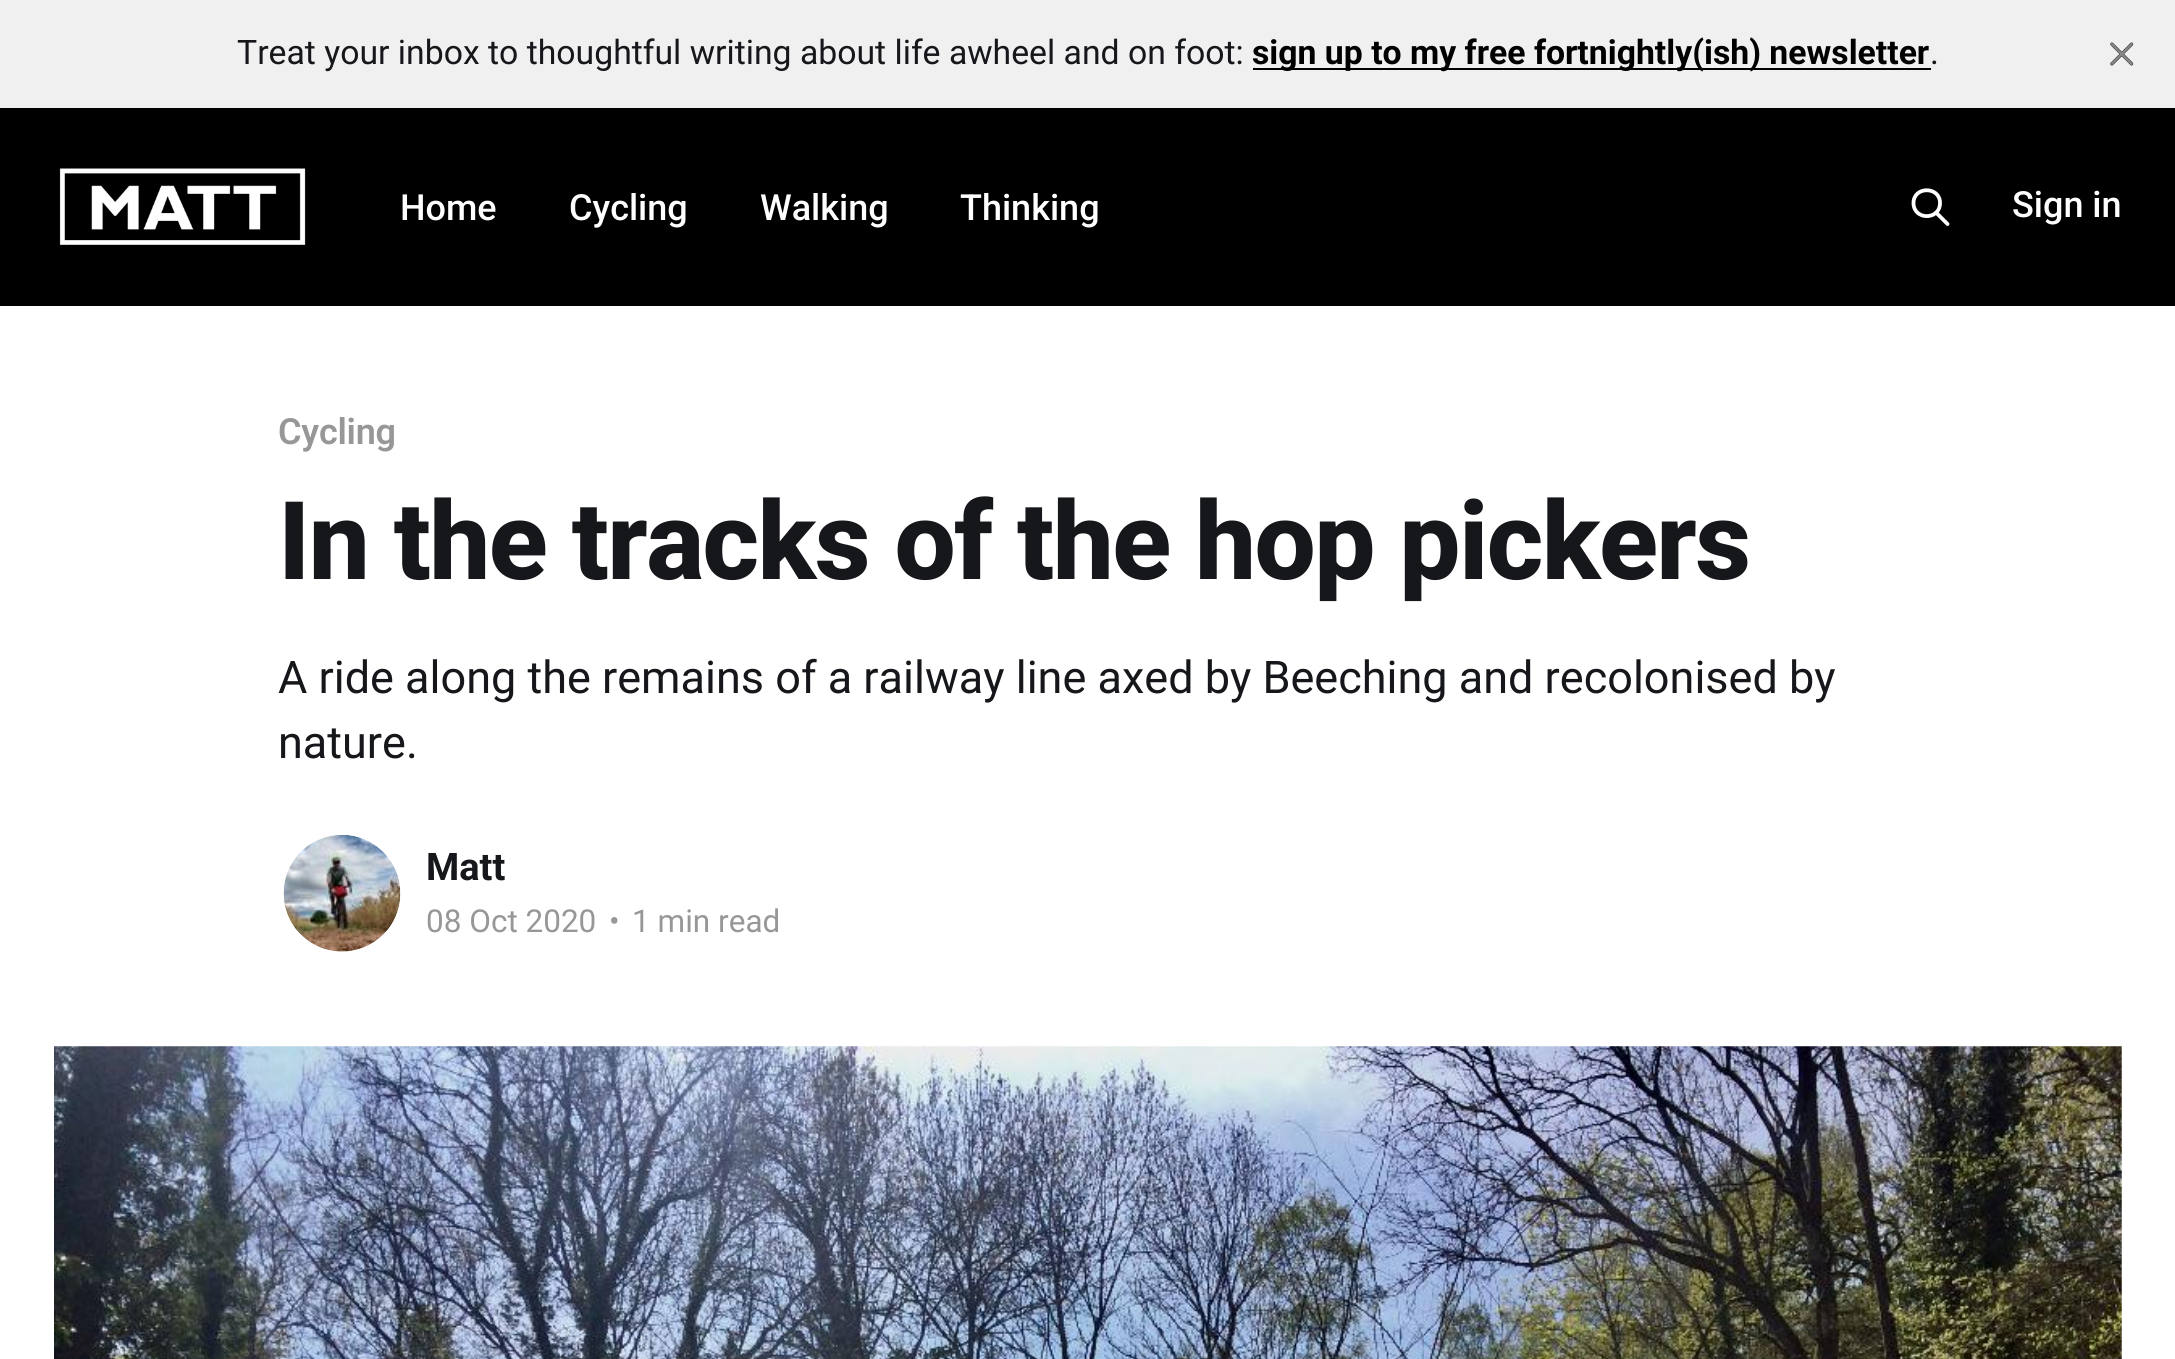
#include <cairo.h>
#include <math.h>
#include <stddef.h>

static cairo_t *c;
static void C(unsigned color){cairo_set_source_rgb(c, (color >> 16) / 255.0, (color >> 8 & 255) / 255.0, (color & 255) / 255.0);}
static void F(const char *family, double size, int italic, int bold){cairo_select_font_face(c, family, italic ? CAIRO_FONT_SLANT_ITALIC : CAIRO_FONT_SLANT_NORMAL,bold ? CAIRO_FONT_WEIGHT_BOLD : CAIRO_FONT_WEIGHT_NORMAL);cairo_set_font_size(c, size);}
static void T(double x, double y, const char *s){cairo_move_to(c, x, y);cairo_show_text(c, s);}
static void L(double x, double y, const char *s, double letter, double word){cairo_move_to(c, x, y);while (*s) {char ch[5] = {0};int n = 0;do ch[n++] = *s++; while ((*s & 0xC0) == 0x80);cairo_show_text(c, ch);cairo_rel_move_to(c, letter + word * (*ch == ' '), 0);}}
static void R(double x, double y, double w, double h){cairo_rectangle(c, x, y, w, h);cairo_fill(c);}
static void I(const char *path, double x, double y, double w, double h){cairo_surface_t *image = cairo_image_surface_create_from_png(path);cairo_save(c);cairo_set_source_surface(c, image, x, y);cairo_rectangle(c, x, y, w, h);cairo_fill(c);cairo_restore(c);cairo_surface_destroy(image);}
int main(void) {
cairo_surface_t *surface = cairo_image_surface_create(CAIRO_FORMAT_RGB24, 2175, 1359);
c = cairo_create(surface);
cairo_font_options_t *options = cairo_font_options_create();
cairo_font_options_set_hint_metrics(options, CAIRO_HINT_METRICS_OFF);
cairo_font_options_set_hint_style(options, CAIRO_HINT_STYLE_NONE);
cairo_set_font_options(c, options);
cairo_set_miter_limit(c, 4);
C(0xffffff);
cairo_paint(c);
C(0xf0f0f0);
R(0,0,2175,108);
F("Roboto",33.75,0,0);
C(0x15171a);
T(237,64,"Treat your inbox to thoughtful writing about life awheel and on foot:");
C(0x000000);
R(1253,68,678,2);
F("Roboto",33.75,0,1);
T(1252,64,"sign up to my free fortnightly(ish) newsletter");
F("Roboto",33.75,0,0);
C(0x15171a);
T(1930,64,".");
I("1.png",2110,42,24,24);
C(0x000000);
R(0,108,2175,198);
I("2.png",59,168,247,77);
F("Roboto Medium",36,0,0);
C(0xffffff);
T(400,220,"Home");
T(569,220,"Cycling");
T(760,220,"Walking");
T(960,220,"Thinking");
cairo_new_path(c);
cairo_move_to(c,1947.5,224);
cairo_line_to(c,1936,212.5);
cairo_move_to(c,1940,203);
cairo_curve_to(c,1940,220.5,1913.5,220.5,1913.5,203);
cairo_curve_to(c,1913.5,186,1940,186,1940,203);
cairo_close_path(c);
cairo_set_line_width(c,3.8);
cairo_set_line_cap(c,CAIRO_LINE_CAP_ROUND);
cairo_set_line_join(c,CAIRO_LINE_JOIN_ROUND);
cairo_stroke(c);
T(2012,217,"Sign in");
F("Roboto SemiBold",36,0,0);
C(0x979797);
L(278,444,"Cycling",-.25,0);
F("Roboto ExtraBold",108.75,0,0);
C(0x15171a);
L(278,579,"In the tracks of the hop pickers",-1.6,0);
F("Roboto",45,0,0);
T(278,693,"A ride along the remains of a railway line axed by Beeching and recolonised by");
T(278,758,"nature.");
I("3.png",283,835,118,117);
F("Roboto",38,0,1);
T(426,880,"Matt");
F("Roboto",31.5,0,0);
C(0x979797);
T(426,932,"08 Oct 2020");
T(609,932,"•");
T(632,932,"1 min read");
I("4.png",54,1046,2068,313);
cairo_surface_write_to_png(surface, "o.png");
cairo_font_options_destroy(options);
cairo_destroy(c);
cairo_surface_destroy(surface);
return 0;
}
